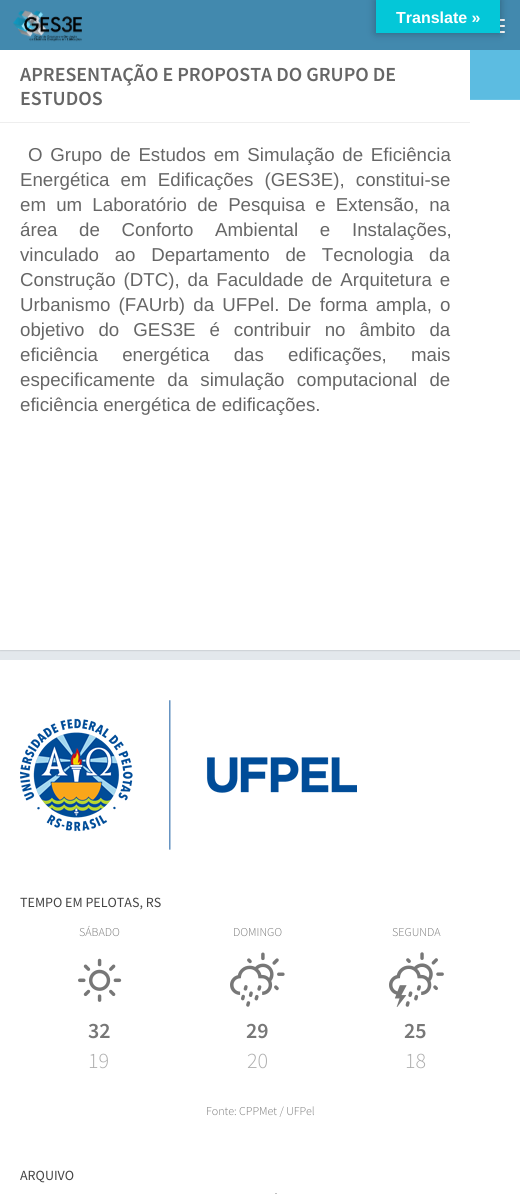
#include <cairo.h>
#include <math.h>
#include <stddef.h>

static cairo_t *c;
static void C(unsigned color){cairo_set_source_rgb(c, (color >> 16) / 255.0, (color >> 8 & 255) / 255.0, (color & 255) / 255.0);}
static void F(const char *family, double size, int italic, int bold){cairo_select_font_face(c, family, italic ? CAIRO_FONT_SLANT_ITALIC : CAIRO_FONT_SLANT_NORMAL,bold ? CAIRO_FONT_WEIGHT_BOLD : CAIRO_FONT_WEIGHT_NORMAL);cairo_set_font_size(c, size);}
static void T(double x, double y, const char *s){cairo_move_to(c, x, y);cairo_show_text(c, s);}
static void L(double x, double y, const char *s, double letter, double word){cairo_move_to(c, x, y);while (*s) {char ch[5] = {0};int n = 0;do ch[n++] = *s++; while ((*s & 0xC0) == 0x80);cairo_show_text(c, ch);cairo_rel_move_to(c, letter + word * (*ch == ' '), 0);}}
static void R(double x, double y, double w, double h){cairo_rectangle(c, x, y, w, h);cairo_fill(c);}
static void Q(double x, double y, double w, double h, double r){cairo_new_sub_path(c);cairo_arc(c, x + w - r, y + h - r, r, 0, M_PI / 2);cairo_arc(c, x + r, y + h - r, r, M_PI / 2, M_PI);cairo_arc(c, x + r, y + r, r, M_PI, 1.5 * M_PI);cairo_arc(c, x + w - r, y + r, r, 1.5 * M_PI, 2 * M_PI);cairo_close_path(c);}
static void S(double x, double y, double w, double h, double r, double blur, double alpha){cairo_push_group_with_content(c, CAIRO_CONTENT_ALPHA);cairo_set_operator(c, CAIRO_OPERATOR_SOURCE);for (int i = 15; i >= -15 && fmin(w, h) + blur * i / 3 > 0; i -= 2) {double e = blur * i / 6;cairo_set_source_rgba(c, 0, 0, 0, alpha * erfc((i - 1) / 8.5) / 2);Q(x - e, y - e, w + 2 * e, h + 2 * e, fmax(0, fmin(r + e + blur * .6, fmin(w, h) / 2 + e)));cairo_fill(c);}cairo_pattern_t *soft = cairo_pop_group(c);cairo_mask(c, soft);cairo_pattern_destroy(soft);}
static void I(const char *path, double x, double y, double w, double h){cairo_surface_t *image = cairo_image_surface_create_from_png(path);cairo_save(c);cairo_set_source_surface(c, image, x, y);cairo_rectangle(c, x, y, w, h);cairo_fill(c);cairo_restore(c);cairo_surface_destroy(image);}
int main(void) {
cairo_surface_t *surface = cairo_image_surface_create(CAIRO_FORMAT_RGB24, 520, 1194);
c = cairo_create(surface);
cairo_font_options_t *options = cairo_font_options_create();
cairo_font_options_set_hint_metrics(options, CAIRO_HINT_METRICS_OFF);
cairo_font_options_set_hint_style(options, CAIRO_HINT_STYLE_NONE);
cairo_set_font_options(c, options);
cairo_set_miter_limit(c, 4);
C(0xe3e8ec);
cairo_paint(c);
C(0x000000);
S(0,51,520,600,0,.5,.1);
C(0x4289ae);
R(0,0,520,50);
C(0xffffff);
Q(485,19,20,2,1);
cairo_fill(c);
Q(485,25,20,2,1);
cairo_fill(c);
Q(485,31,20,2,1);
cairo_fill(c);
C(0x000000);
S(376,0,124,33,0,4.5,.3);
C(0x04c7d8);
R(376,0,124,33);
F("Liberation Sans",16,0,1);
C(0xffffff);
T(396,23,"Translate »");
I("1.png",13,10,69,32);
R(0,50,470,600);
R(470,100,50,550);
C(0xeeeeee);
R(0,122,470,1);
F("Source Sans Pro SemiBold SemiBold",20,0,0);
C(0x666666);
T(20,81,"APRESENTAÇÃO E PROPOSTA DO GRUPO DE");
T(20,105,"ESTUDOS");
F("Liberation Sans",18.7,0,0);
L(28,161,"O Grupo de Estudos em Simulação de Eficiência",0,2.5);
L(20,186,"Energética em Edificações (GES3E), constitui-se",0,6);
L(20,211,"em um Laboratório de Pesquisa e Extensão, na",0,5);
L(20,236,"área de Conforto Ambiental e Instalações,",0,16.5);
L(20,261,"vinculado ao Departamento de Tecnologia da",0,10.5);
L(20,286,"Construção (DTC), da Faculdade de Arquitetura e",0,2.75);
L(20,311,"Urbanismo (FAUrb) da UFPel. De forma ampla, o",0,3);
L(20,336,"objetivo do GES3E é contribuir no âmbito da",0,8.75);
L(20,361,"eficiência energética das edificações, mais",0,19);
L(20,386,"especificamente da simulação computacional de",0,7);
T(20,411,"eficiência energética de edificações.");
C(0x5cbce1);
R(470,50,50,49);
C(0x6cc3e4);
R(470,99,50,1);
C(0xffffff);
R(0,660,520,534);
I("2.png",20,700,337,150);
F("Source Sans Pro",14,0,0);
C(0x444444);
T(20,907,"TEMPO EM PELOTAS, RS");
F("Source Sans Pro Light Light",12,0,0);
C(0x777777);
T(79,936,"SÁBADO");
I("3.png",78,958,44,44);
F("Source Sans Pro SemiBold SemiBold",22,0,0);
T(88,1038,"32");
F("Source Sans Pro Light Light",22,0,0);
C(0xadadad);
T(88,1068,"19");
F("Source Sans Pro Light Light",12,0,0);
C(0x777777);
T(233,936,"DOMINGO");
I("4.png",230,952,55,55);
F("Source Sans Pro SemiBold SemiBold",22,0,0);
T(246,1038,"29");
F("Source Sans Pro Light Light",22,0,0);
C(0xadadad);
T(247,1068,"20");
F("Source Sans Pro Light Light",12,0,0);
C(0x777777);
T(392,936,"SEGUNDA");
I("5.png",389,952,55,55);
F("Source Sans Pro SemiBold SemiBold",22,0,0);
T(404,1038,"25");
F("Source Sans Pro Light Light",22,0,0);
C(0xadadad);
T(405,1068,"18");
F("Source Sans Pro Light Light",12,0,0);
C(0x777777);
T(206,1115,"Fonte: CPPMet / UFPel");
F("Source Sans Pro",14,0,0);
C(0x444444);
T(20,1180,"ARQUIVO");
cairo_new_path(c);
cairo_move_to(c,276,1193);
cairo_line_to(c,276,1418);
C(0xc0c0c0);
cairo_set_dash(c,(double[]){2,2},2,0);
cairo_stroke(c);
cairo_surface_write_to_png(surface, "o.png");
cairo_font_options_destroy(options);
cairo_destroy(c);
cairo_surface_destroy(surface);
return 0;
}
